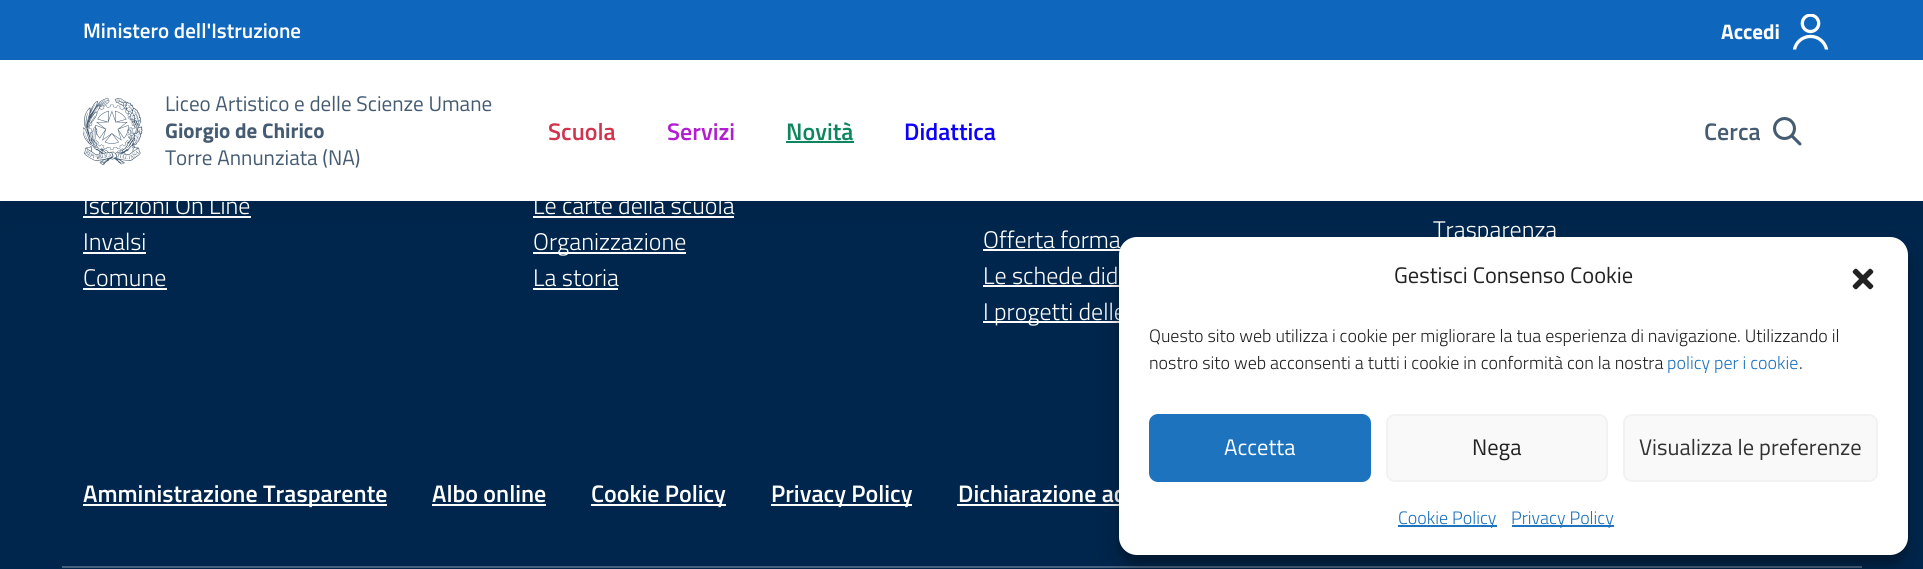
#include <cairo.h>
#include <math.h>
#include <stddef.h>

static cairo_t *c;
static void C(unsigned color){cairo_set_source_rgb(c, (color >> 16) / 255.0, (color >> 8 & 255) / 255.0, (color & 255) / 255.0);}
static void F(const char *family, double size, int italic, int bold){cairo_select_font_face(c, family, italic ? CAIRO_FONT_SLANT_ITALIC : CAIRO_FONT_SLANT_NORMAL,bold ? CAIRO_FONT_WEIGHT_BOLD : CAIRO_FONT_WEIGHT_NORMAL);cairo_set_font_size(c, size);}
static void T(double x, double y, const char *s){cairo_move_to(c, x, y);cairo_show_text(c, s);}
static void R(double x, double y, double w, double h){cairo_rectangle(c, x, y, w, h);cairo_fill(c);}
static void Q(double x, double y, double w, double h, double r){cairo_new_sub_path(c);cairo_arc(c, x + w - r, y + h - r, r, 0, M_PI / 2);cairo_arc(c, x + r, y + h - r, r, M_PI / 2, M_PI);cairo_arc(c, x + r, y + r, r, M_PI, 1.5 * M_PI);cairo_arc(c, x + w - r, y + r, r, 1.5 * M_PI, 2 * M_PI);cairo_close_path(c);}
static void S(double x, double y, double w, double h, double r, double blur, double alpha){cairo_push_group_with_content(c, CAIRO_CONTENT_ALPHA);cairo_set_operator(c, CAIRO_OPERATOR_SOURCE);for (int i = 15; i >= -15 && fmin(w, h) + blur * i / 3 > 0; i -= 2) {double e = blur * i / 6;cairo_set_source_rgba(c, 0, 0, 0, alpha * erfc((i - 1) / 8.5) / 2);Q(x - e, y - e, w + 2 * e, h + 2 * e, fmax(0, fmin(r + e + blur * .6, fmin(w, h) / 2 + e)));cairo_fill(c);}cairo_pattern_t *soft = cairo_pop_group(c);cairo_mask(c, soft);cairo_pattern_destroy(soft);}
static void I(const char *path, double x, double y, double w, double h){cairo_surface_t *image = cairo_image_surface_create_from_png(path);cairo_save(c);cairo_set_source_surface(c, image, x, y);cairo_rectangle(c, x, y, w, h);cairo_fill(c);cairo_restore(c);cairo_surface_destroy(image);}
int main(void) {
cairo_surface_t *surface = cairo_image_surface_create(CAIRO_FORMAT_RGB24, 1923, 569);
c = cairo_create(surface);
cairo_font_options_t *options = cairo_font_options_create();
cairo_font_options_set_hint_metrics(options, CAIRO_HINT_METRICS_OFF);
cairo_font_options_set_hint_style(options, CAIRO_HINT_STYLE_NONE);
cairo_set_font_options(c, options);
cairo_set_miter_limit(c, 4);
C(0x00264d);
cairo_paint(c);
C(0xffffff);
R(83,216,168,2);
R(83,252,63,2);
R(533,216,201,2);
R(533,252,153,2);
R(983,249,137,2);
C(0x000000);
S(0,3,1923,201,0,18.5,.1);
C(0xffffff);
R(0,60,1923,141);
C(0x0f66bd);
R(0,0,1923,60);
F("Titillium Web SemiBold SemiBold",21,0,0);
C(0xffffff);
T(83,38,"Ministero dell'Istruzione");
F("Titillium Web",21,0,1);
T(1721,39,"Accedi");
I("1.png",1793,14,36,36);
I("2.png",83,98,60,67);
F("Titillium Web",21.1,0,0);
C(0x455b71);
T(165,111,"Liceo Artistico e delle Scienze Umane");
F("Titillium Web",21.1,0,1);
T(165,138,"Giorgio de Chirico");
F("Titillium Web",21.1,0,0);
T(165,165,"Torre Annunziata (NA)");
F("Titillium Web SemiBold SemiBold",24,0,0);
C(0xd1344c);
T(548,140,"Scuola");
C(0xb21dd0);
T(667,140,"Servizi");
C(0x0e865c);
T(786,140,"Novità");
R(786,141,68,2);
C(0x0d00ff);
T(904,140,"Didattica");
C(0x455b71);
T(1704,140,"Cerca");
I("3.png",1773,117,29,29);
F("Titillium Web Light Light",24,0,0);
C(0xffffff);
T(83,214,"Iscrizioni On Line");
T(83,250,"Invalsi");
T(83,286,"Comune");
R(83,288,84,2);
T(533,214,"Le carte della scuola");
T(533,250,"Organizzazione");
T(533,286,"La storia");
R(533,288,85,2);
T(983,248,"Offerta forma");
T(983,284,"Le schede did");
R(983,285,136,2);
R(983,321,136,2);
T(983,320,"I progetti delle");
T(1433,238,"Trasparenza");
R(83,504,304,2);
F("Titillium Web SemiBold SemiBold",24,0,0);
T(83,502,"Amministrazione Trasparente");
T(432,502,"Albo online");
R(432,504,114,2);
R(591,504,135,2);
T(591,502,"Cookie Policy");
R(771,504,141,2);
T(771,502,"Privacy Policy");
T(958,502,"Dichiarazione ac");
R(957,504,162,2);
C(0x45617d);
R(62,566,1800,2);
C(0x000000);
S(1119,246,789,318,18,4.5,.23);
S(1119,252,789,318,18,15,.19);
C(0xffffff);
Q(1119,237,789,318,18);
cairo_fill(c);
F("Titillium Web",22.5,0,0);
C(0x222222);
T(1394,283,"Gestisci Consenso Cookie");
I("4.png",1852,268,22,22);
F("Titillium Web Light Light",18,0,0);
T(1149,342,"Questo sito web utilizza i cookie per migliorare la tua esperienza di navigazione. Utilizzando il");
T(1149,369,"nostro sito web acconsenti a tutti i cookie in conformità con la nostra");
C(0x1e73be);
T(1667,369,"policy per i cookie");
C(0x222222);
T(1799,369,".");
C(0x1e73be);
Q(1150,415,220,66,8);
cairo_fill_preserve(c);
cairo_stroke(c);
F("Titillium Web",22.5,0,0);
C(0xffffff);
T(1224,455,"Accetta");
C(0xf9f9f9);
Q(1387,415,220,66,8);
cairo_fill_preserve(c);
C(0xf2f2f2);
cairo_stroke(c);
C(0x222222);
T(1472,455,"Nega");
C(0xf9f9f9);
Q(1624,415,253,66,8);
cairo_fill_preserve(c);
C(0xf2f2f2);
cairo_stroke(c);
C(0x333333);
T(1639,455,"Visualizza le preferenze");
C(0x1e73be);
R(1398,525,99,2);
F("Titillium Web Light Light",18,0,0);
T(1398,524,"Cookie Policy");
R(1512,525,102,2);
T(1511,524,"Privacy Policy");
cairo_surface_write_to_png(surface, "o.png");
cairo_font_options_destroy(options);
cairo_destroy(c);
cairo_surface_destroy(surface);
return 0;
}
